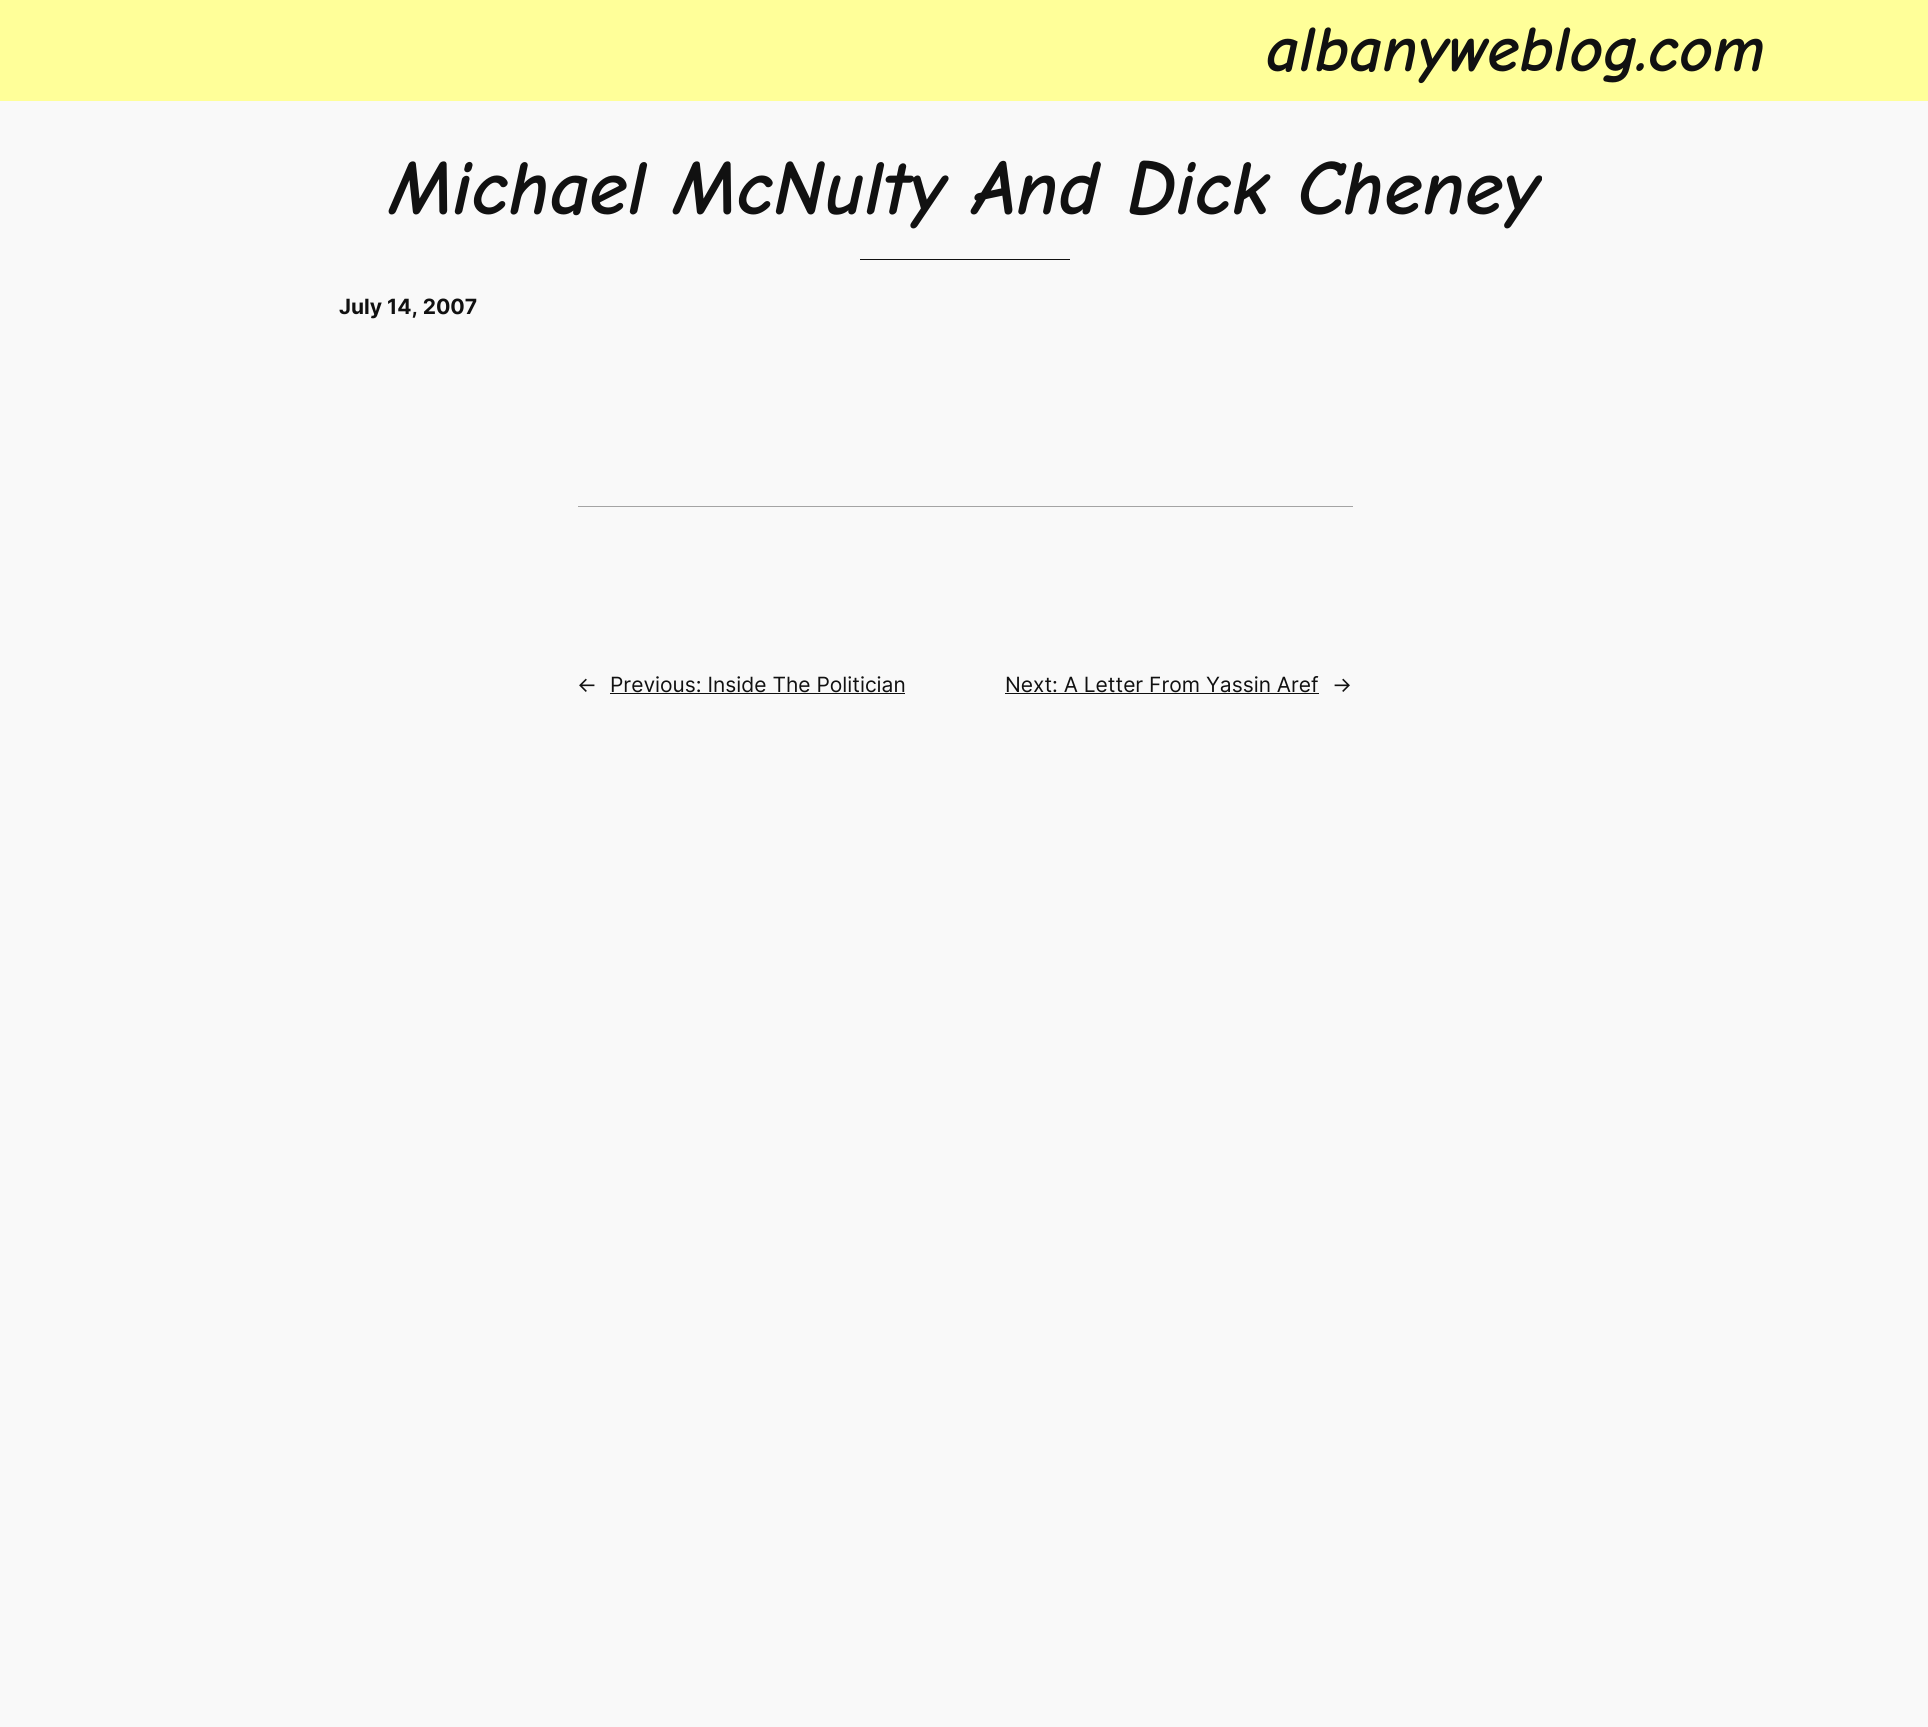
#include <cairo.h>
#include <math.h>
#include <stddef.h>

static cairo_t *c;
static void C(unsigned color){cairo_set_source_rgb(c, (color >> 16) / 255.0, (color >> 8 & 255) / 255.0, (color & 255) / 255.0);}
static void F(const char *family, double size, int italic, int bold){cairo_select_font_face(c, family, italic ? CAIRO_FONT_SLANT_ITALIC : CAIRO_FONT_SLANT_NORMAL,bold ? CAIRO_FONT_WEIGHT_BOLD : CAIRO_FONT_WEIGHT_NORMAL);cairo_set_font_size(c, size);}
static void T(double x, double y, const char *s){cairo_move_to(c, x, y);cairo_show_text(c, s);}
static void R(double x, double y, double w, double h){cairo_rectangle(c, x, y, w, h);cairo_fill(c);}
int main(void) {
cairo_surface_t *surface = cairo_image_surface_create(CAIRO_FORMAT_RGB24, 1928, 1727);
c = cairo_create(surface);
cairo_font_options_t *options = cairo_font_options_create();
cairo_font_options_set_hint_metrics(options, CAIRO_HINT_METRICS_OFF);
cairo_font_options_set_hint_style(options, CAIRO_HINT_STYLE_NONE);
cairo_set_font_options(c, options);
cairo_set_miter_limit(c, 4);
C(0xf9f9f9);
cairo_paint(c);
C(0xffff99);
R(0,0,1928,101);
F("Comic Neue",65.5,1,1);
C(0x111111);
T(1266,71,"albanyweblog.com");
F("Comic Neue",78,1,1);
T(390,214,"Michael McNulty And Dick Cheney");
R(860,259,210,1);
F("Inter",21,0,1);
T(339,314,"July 14, 2007");
C(0xa4a4a4);
R(578,506,775,1);
F("Inter",21,0,0);
C(0x111111);
T(577,692,"←");
T(610,692,"Previous: Inside The Politician");
R(610,693,295,1);
T(1005,692,"Next: A Letter From Yassin Aref");
R(1005,693,314,1);
T(1332,692,"→");
cairo_surface_write_to_png(surface, "o.png");
cairo_font_options_destroy(options);
cairo_destroy(c);
cairo_surface_destroy(surface);
return 0;
}
